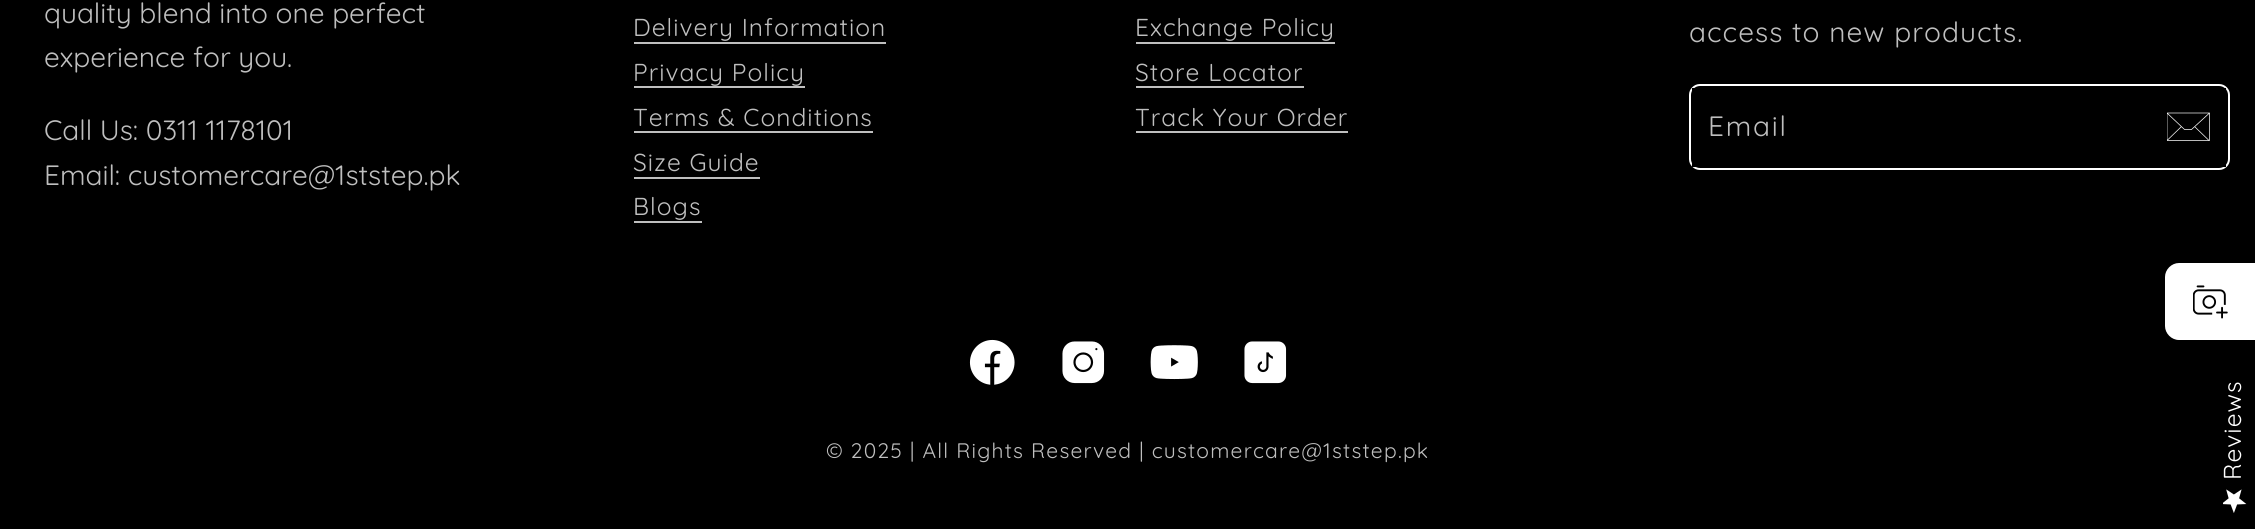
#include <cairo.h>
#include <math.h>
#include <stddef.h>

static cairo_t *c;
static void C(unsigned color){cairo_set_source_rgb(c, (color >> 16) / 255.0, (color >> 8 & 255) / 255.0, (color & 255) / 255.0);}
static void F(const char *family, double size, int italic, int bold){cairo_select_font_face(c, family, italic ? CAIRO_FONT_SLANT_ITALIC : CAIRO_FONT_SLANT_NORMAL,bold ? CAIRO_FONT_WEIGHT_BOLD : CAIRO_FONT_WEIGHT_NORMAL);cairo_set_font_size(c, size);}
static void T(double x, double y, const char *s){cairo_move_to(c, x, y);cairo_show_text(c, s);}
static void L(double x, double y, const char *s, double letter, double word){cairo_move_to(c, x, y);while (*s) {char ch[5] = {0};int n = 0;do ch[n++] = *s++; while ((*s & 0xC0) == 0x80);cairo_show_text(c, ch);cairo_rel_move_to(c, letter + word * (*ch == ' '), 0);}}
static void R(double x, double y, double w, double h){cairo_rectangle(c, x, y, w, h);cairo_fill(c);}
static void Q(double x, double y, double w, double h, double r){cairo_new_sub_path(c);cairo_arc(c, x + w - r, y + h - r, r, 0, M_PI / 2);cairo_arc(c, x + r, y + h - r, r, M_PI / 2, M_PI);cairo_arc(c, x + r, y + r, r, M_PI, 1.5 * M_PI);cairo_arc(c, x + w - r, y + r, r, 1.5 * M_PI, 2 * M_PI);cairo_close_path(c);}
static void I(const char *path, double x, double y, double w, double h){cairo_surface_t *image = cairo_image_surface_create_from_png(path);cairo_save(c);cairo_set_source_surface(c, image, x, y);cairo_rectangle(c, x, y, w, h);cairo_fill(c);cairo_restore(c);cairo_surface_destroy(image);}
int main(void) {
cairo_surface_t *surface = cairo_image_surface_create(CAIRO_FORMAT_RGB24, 2255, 529);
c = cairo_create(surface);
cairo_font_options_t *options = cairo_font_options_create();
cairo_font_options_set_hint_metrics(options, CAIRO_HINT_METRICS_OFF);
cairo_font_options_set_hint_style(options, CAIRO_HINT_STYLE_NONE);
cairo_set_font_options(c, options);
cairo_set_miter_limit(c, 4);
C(0x000000);
cairo_paint(c);
F("Quicksand",28,0,0);
C(0xbfbfbf);
T(44,23,"quality blend into one perfect");
T(44,67,"experience for you.");
T(44,140,"Call Us: 0311 1178101");
T(44,185,"Email: customercare@1ststep.pk");
F("Quicksand",24.5,0,0);
L(633,36,"Delivery Information",1.05,0);
R(634,42,252,2);
L(633,81,"Privacy Policy",1.05,0);
R(634,86,171,2);
L(633,126,"Terms & Conditions",1.05,0);
R(634,131,239,2);
L(633,171,"Size Guide",1.05,0);
R(634,177,126,2);
L(633,215,"Blogs",1.05,0);
R(634,221,68,2);
L(1135,36,"Exchange Policy",1.05,0);
R(1136,42,199,2);
L(1135,81,"Store Locator",1.05,0);
R(1136,86,168,2);
L(1135,126,"Track Your Order",1.05,0);
R(1136,131,212,2);
F("Quicksand",28,0,0);
L(1689,42,"access to new products.",1.05,0);
Q(1690,85,539,84,10);
C(0xffffff);
cairo_stroke(c);
C(0x000000);
R(1692,88,534,3);
R(1692,163,534,4);
C(0xbfbfbf);
L(1708,136,"Email",1.75,0);
cairo_save(c);
cairo_rectangle(c,2167,105,43,44);
cairo_clip(c);
cairo_new_path(c);
cairo_move_to(c,2209.5,140.5);
cairo_line_to(c,2167,140.5);
cairo_line_to(c,2167,113);
cairo_line_to(c,2209.5,113);
cairo_close_path(c);
cairo_move_to(c,2167,113);
cairo_line_to(c,2184.5,129.5);
cairo_line_to(c,2191.5,129.5);
cairo_line_to(c,2209.5,113);
cairo_move_to(c,2181.5,126.5);
cairo_line_to(c,2167.5,140);
cairo_move_to(c,2209,140.5);
cairo_line_to(c,2194.5,126.5);
C(0xffffff);
cairo_set_line_width(c,.7);
cairo_stroke(c);
cairo_restore(c);
I("1.png",969,339,46,46);
I("2.png",1062,341,43,43);
I("3.png",1150,345,48,35);
I("4.png",1244,341,43,43);
F("Quicksand",21,0,0);
L(826,458,"© 2025 | All Rights Reserved | customercare@1ststep.pk",1.22,0);
C(0xffffff);
cairo_new_path(c);
cairo_move_to(c,2179,263);
cairo_line_to(c,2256,263);
cairo_line_to(c,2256,340);
cairo_line_to(c,2179,340);
cairo_curve_to(c,2171.5,340,2165,333.5,2165,326);
cairo_line_to(c,2165,277);
cairo_curve_to(c,2165,269.5,2171.5,263,2179,263);
cairo_close_path(c);
cairo_fill(c);
I("5.png",2193,285,35,34);
F("Quicksand",24.5,0,0);
cairo_save(c);
cairo_translate(c,2241,480);
cairo_rotate(c,-90 * M_PI / 180);
L(0,0,"Reviews",1.05,0);
cairo_restore(c);
I("6.png",2223,489,24,24);
cairo_surface_write_to_png(surface, "o.png");
cairo_font_options_destroy(options);
cairo_destroy(c);
cairo_surface_destroy(surface);
return 0;
}
